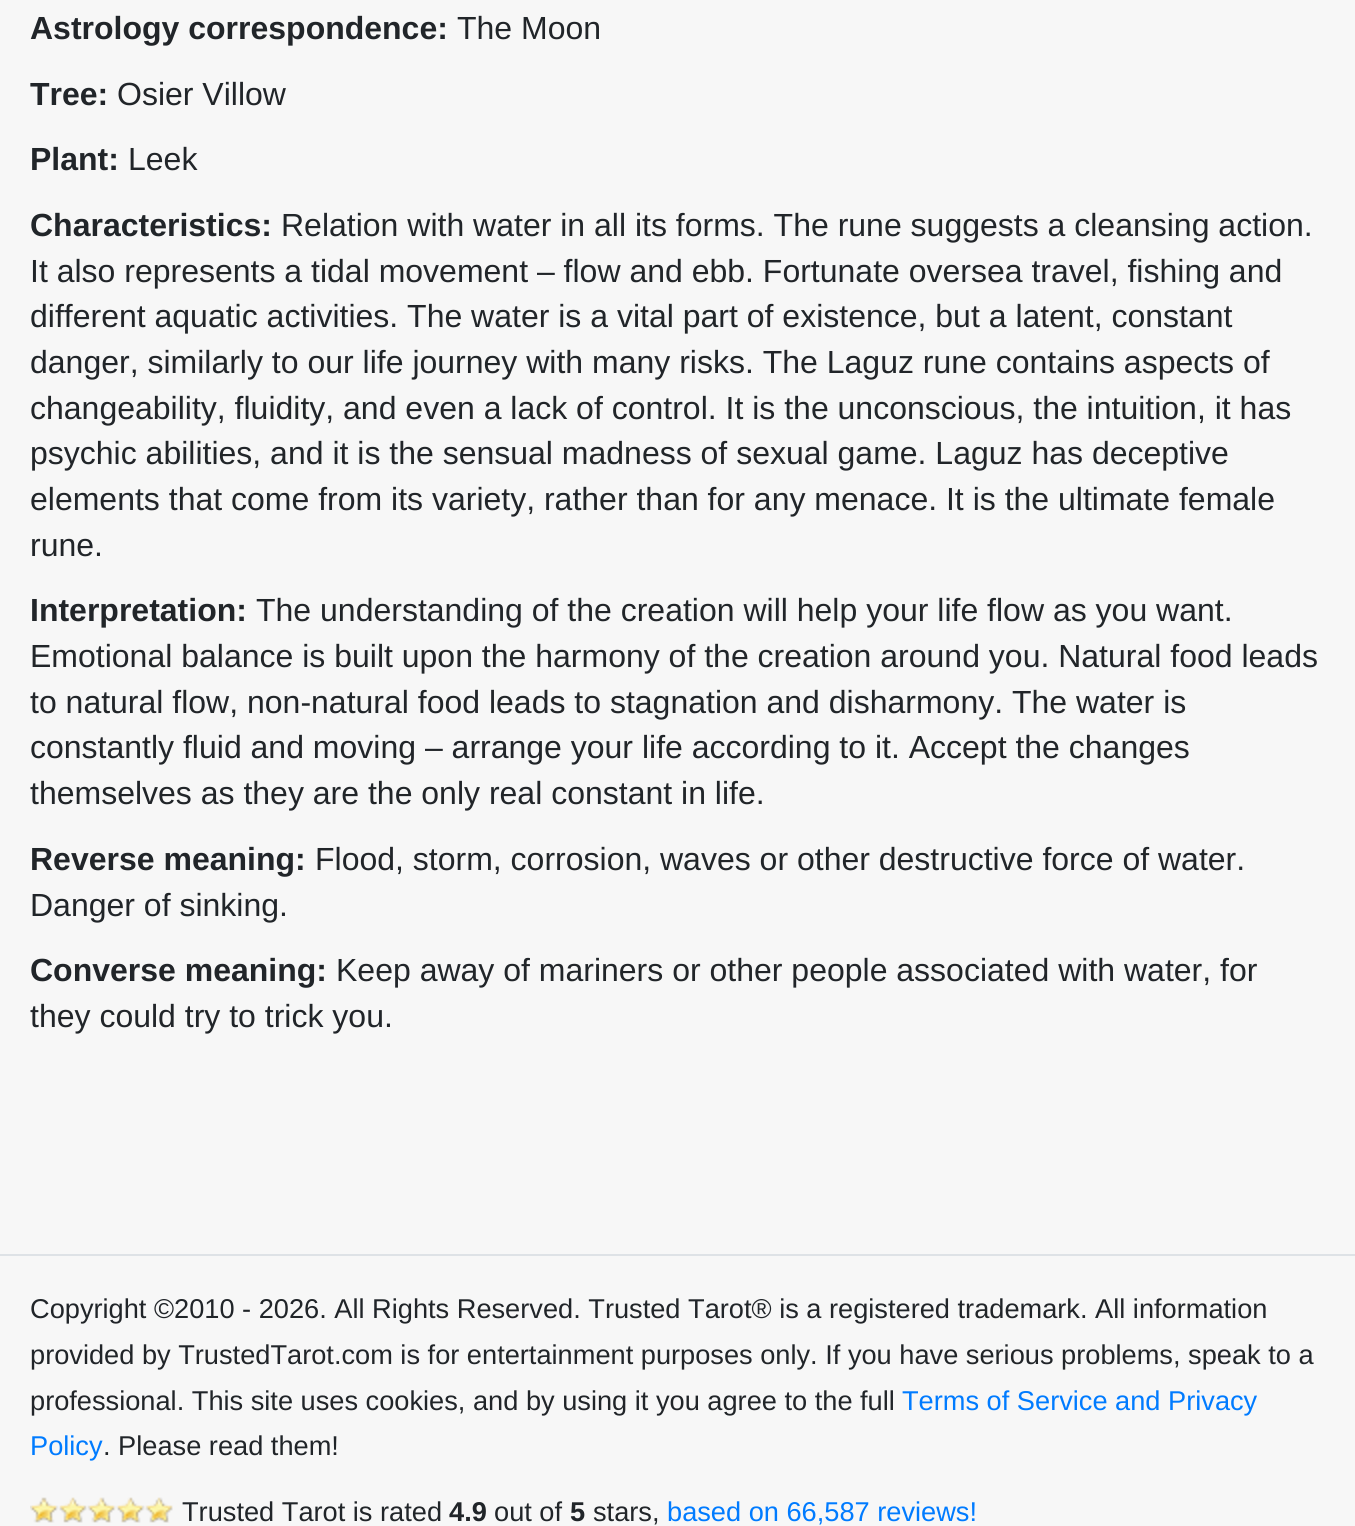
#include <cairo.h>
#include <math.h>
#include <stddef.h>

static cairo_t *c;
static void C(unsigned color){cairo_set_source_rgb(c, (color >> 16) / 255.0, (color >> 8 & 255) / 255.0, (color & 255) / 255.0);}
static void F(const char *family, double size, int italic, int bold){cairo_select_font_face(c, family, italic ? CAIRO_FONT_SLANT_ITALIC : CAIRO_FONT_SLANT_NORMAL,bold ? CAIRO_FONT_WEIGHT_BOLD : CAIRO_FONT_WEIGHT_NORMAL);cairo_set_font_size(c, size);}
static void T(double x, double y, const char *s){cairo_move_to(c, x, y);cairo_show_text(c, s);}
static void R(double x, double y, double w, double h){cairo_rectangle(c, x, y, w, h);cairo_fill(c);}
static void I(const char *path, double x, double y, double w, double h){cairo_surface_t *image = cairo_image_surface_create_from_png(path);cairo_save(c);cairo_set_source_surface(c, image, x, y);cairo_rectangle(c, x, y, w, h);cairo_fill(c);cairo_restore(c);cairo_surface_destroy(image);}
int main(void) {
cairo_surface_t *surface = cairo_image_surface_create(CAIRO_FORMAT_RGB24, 1355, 1526);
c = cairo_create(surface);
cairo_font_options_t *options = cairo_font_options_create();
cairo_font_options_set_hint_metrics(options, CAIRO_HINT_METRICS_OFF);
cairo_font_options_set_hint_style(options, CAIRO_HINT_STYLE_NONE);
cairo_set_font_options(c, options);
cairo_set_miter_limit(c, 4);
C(0xf7f7f7);
cairo_paint(c);
F("Liberation Sans",32,0,1);
C(0x212529);
T(30,39,"Astrology correspondence:");
F("Liberation Sans",32,0,0);
T(457,39,"The Moon");
F("Liberation Sans",32,0,1);
T(30,105,"Tree:");
F("Liberation Sans",32,0,0);
T(117,105,"Osier Villow");
F("Liberation Sans",32,0,1);
T(30,170,"Plant:");
F("Liberation Sans",32,0,0);
T(128,170,"Leek");
F("Liberation Sans",32,0,1);
T(30,236,"Characteristics:");
F("Liberation Sans",32,0,0);
T(281,236,"Relation with water in all its forms. The rune suggests a cleansing action.");
T(30,282,"It also represents a tidal movement – flow and ebb. Fortunate oversea travel, fishing and");
T(30,327,"different aquatic activities. The water is a vital part of existence, but a latent, constant");
T(30,373,"danger, similarly to our life journey with many risks. The Laguz rune contains aspects of");
T(30,419,"changeability, fluidity, and even a lack of control. It is the unconscious, the intuition, it has");
T(30,464,"psychic abilities, and it is the sensual madness of sexual game. Laguz has deceptive");
T(30,510,"elements that come from its variety, rather than for any menace. It is the ultimate female");
T(30,556,"rune.");
F("Liberation Sans",32,0,1);
T(30,621,"Interpretation:");
F("Liberation Sans",32,0,0);
T(256,621,"The understanding of the creation will help your life flow as you want.");
T(30,667,"Emotional balance is built upon the harmony of the creation around you. Natural food leads");
T(30,713,"to natural flow, non-natural food leads to stagnation and disharmony. The water is");
T(30,758,"constantly fluid and moving – arrange your life according to it. Accept the changes");
T(30,804,"themselves as they are the only real constant in life.");
F("Liberation Sans",32,0,1);
T(30,870,"Reverse meaning:");
F("Liberation Sans",32,0,0);
T(315,870,"Flood, storm, corrosion, waves or other destructive force of water.");
T(30,916,"Danger of sinking.");
F("Liberation Sans",32,0,1);
T(30,981,"Converse meaning:");
F("Liberation Sans",32,0,0);
T(336,981,"Keep away of mariners or other people associated with water, for");
T(30,1027,"they could try to trick you.");
C(0xdee2e6);
R(0,1254,1355,2);
F("Liberation Sans",27.2,0,0);
C(0x212529);
T(30,1318,"Copyright ©2010 - 2026. All Rights Reserved. Trusted Tarot® is a registered trademark. All information");
T(30,1364,"provided by TrustedTarot.com is for entertainment purposes only. If you have serious problems, speak to a");
T(30,1410,"professional. This site uses cookies, and by using it you agree to the full");
C(0x007bff);
T(902,1410,"Terms of Service and Privacy");
T(30,1455,"Policy");
C(0x212529);
T(103,1455,". Please read them!");
I("1.png",30,1497,143,26);
T(182,1521,"Trusted Tarot is rated");
F("Liberation Sans",27.2,0,1);
T(449,1521,"4.9");
F("Liberation Sans",27.2,0,0);
T(494,1521,"out of");
F("Liberation Sans",27.2,0,1);
T(570,1521,"5");
F("Liberation Sans",27.2,0,0);
T(593,1521,"stars,");
C(0x007bff);
T(667,1521,"based on 66,587 reviews!");
cairo_surface_write_to_png(surface, "o.png");
cairo_font_options_destroy(options);
cairo_destroy(c);
cairo_surface_destroy(surface);
return 0;
}
